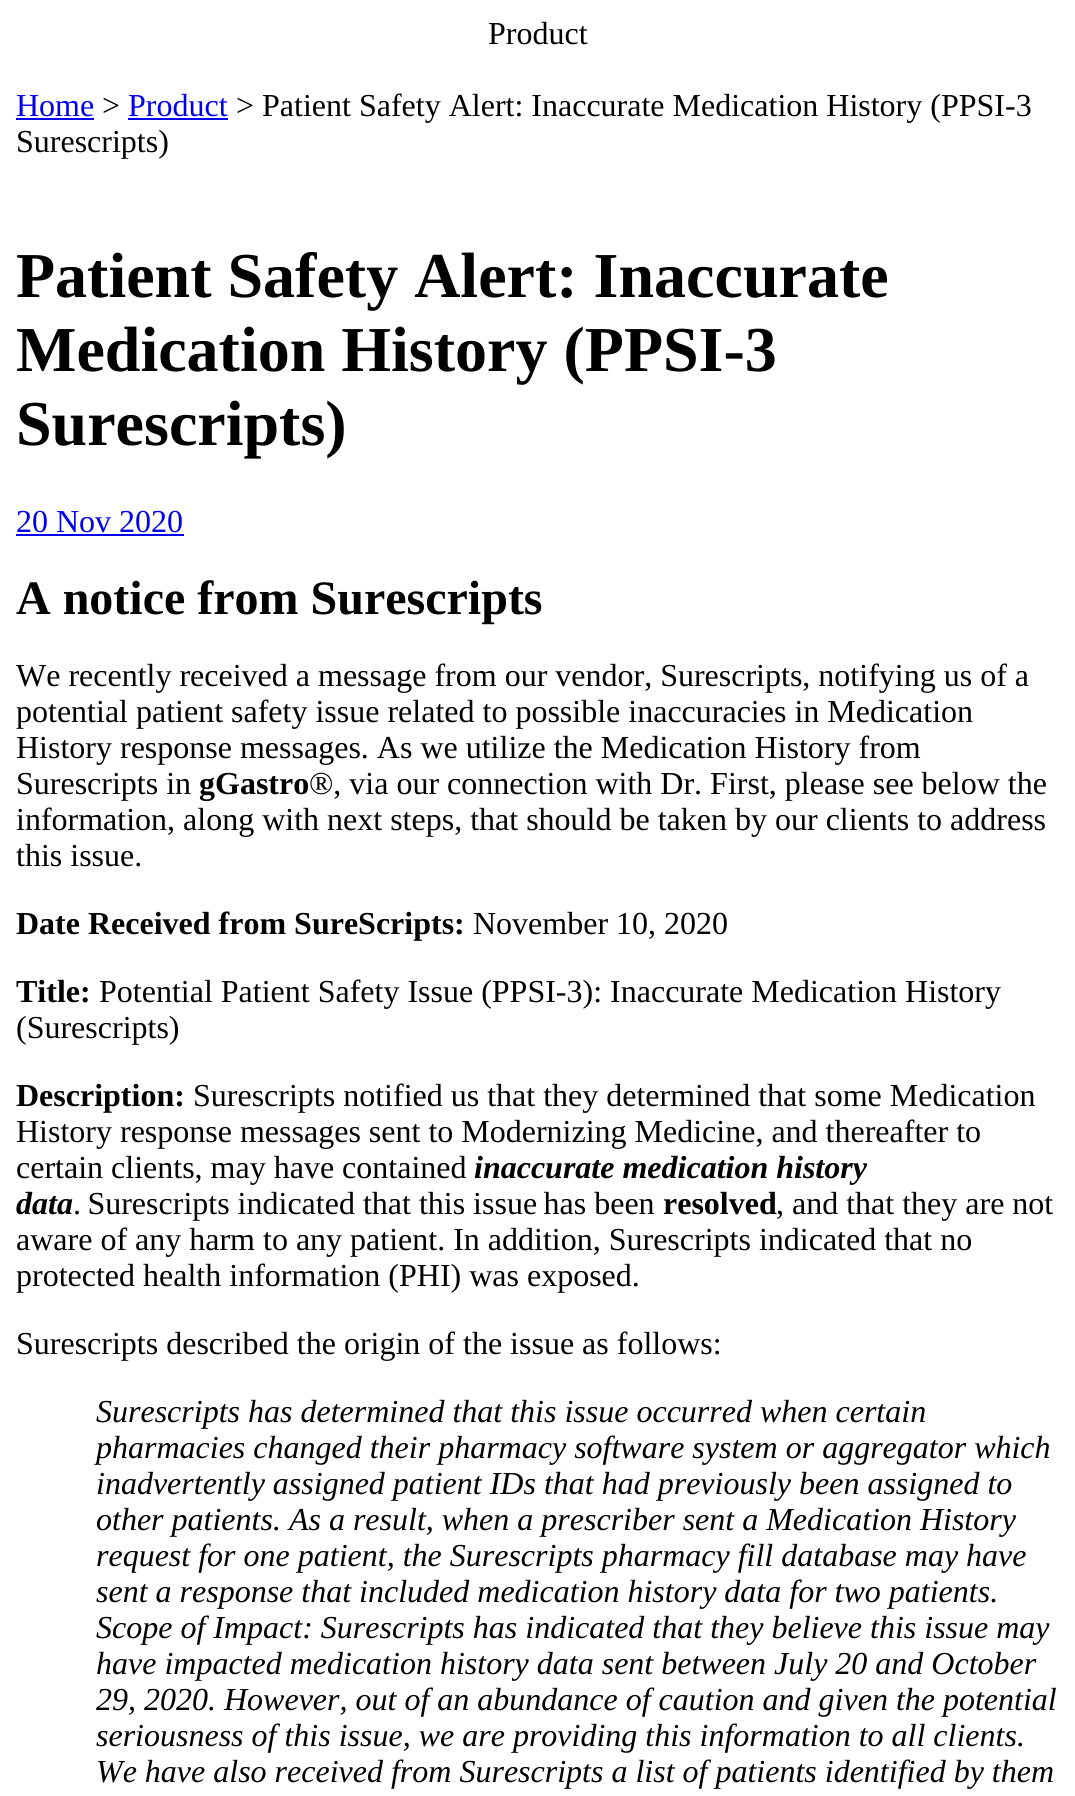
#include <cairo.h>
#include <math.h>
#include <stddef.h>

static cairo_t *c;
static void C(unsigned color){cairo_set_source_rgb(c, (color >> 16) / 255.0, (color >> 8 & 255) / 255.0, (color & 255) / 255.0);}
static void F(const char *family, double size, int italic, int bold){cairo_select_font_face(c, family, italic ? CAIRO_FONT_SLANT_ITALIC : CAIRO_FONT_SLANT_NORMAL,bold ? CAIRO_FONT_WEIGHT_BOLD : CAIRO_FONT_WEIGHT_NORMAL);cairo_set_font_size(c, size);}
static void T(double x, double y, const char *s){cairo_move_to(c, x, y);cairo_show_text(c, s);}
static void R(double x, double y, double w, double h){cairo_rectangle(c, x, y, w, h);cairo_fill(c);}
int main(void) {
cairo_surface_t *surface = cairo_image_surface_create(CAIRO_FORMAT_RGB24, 1075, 1796);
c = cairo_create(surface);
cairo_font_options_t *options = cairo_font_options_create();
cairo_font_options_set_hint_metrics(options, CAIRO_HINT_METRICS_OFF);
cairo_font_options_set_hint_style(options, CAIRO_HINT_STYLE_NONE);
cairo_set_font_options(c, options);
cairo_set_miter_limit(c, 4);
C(0xffffff);
cairo_paint(c);
F("Liberation Serif",32,0,0);
C(0x000000);
T(488,44,"Product");
C(0x0000ee);
T(16,116,"Home");
R(16,118,78,2);
C(0x000000);
T(102,116,">");
C(0x0000ee);
T(128,116,"Product");
R(128,118,100,2);
C(0x000000);
T(236,116,"> Patient Safety Alert: Inaccurate Medication History (PPSI-3");
T(16,152,"Surescripts)");
F("Liberation Serif",64,0,1);
T(16,297,"Patient Safety Alert: Inaccurate");
T(16,371,"Medication History (PPSI-3");
T(16,445,"Surescripts)");
F("Liberation Serif",32,0,0);
C(0x0000ee);
T(16,532,"20 Nov 2020");
R(16,534,168,2);
F("Liberation Serif",48,0,1);
C(0x000000);
T(16,614,"A notice from Surescripts");
F("Liberation Serif",32,0,0);
T(16,686,"We recently received a message from our vendor, Surescripts, notifying us of a");
T(16,722,"potential patient safety issue related to possible inaccuracies in Medication");
T(16,758,"History response messages. As we utilize the Medication History from");
T(16,794,"Surescripts in");
F("Liberation Serif",32,0,1);
T(199,794,"gGastro");
F("Liberation Serif",32,0,0);
T(309,794,"®, via our connection with Dr. First, please see below the");
T(16,830,"information, along with next steps, that should be taken by our clients to address");
T(16,866,"this issue.");
F("Liberation Serif",32,0,1);
T(16,934,"Date Received from SureScripts:");
F("Liberation Serif",32,0,0);
T(473,934,"November 10, 2020");
F("Liberation Serif",32,0,1);
T(16,1002,"Title:");
F("Liberation Serif",32,0,0);
T(99,1002,"Potential Patient Safety Issue (PPSI-3): Inaccurate Medication History");
T(16,1038,"(Surescripts)");
F("Liberation Serif",32,0,1);
T(16,1106,"Description:");
F("Liberation Serif",32,0,0);
T(193,1106,"Surescripts notified us that they determined that some Medication");
T(16,1142,"History response messages sent to Modernizing Medicine, and thereafter to");
T(16,1178,"certain clients, may have contained");
F("Liberation Serif",32,1,1);
T(474,1178,"inaccurate medication history");
T(16,1214,"data");
F("Liberation Serif",32,0,0);
T(73,1214,". Surescripts indicated that this issue has been");
F("Liberation Serif",32,0,1);
T(663,1214,"resolved");
F("Liberation Serif",32,0,0);
T(776,1214,", and that they are not");
T(16,1250,"aware of any harm to any patient. In addition, Surescripts indicated that no");
T(16,1286,"protected health information (PHI) was exposed.");
T(16,1354,"Surescripts described the origin of the issue as follows:");
F("Liberation Serif",32,1,0);
T(96,1422,"Surescripts has determined that this issue occurred when certain");
T(96,1458,"pharmacies changed their pharmacy software system or aggregator which");
T(96,1494,"inadvertently assigned patient IDs that had previously been assigned to");
T(96,1530,"other patients. As a result, when a prescriber sent a Medication History");
T(96,1566,"request for one patient, the Surescripts pharmacy fill database may have");
T(96,1602,"sent a response that included medication history data for two patients.");
T(96,1638,"Scope of Impact: Surescripts has indicated that they believe this issue may");
T(96,1674,"have impacted medication history data sent between July 20 and October");
T(96,1710,"29, 2020. However, out of an abundance of caution and given the potential");
T(96,1746,"seriousness of this issue, we are providing this information to all clients.");
T(96,1782,"We have also received from Surescripts a list of patients identified by them");
cairo_surface_write_to_png(surface, "o.png");
cairo_font_options_destroy(options);
cairo_destroy(c);
cairo_surface_destroy(surface);
return 0;
}
